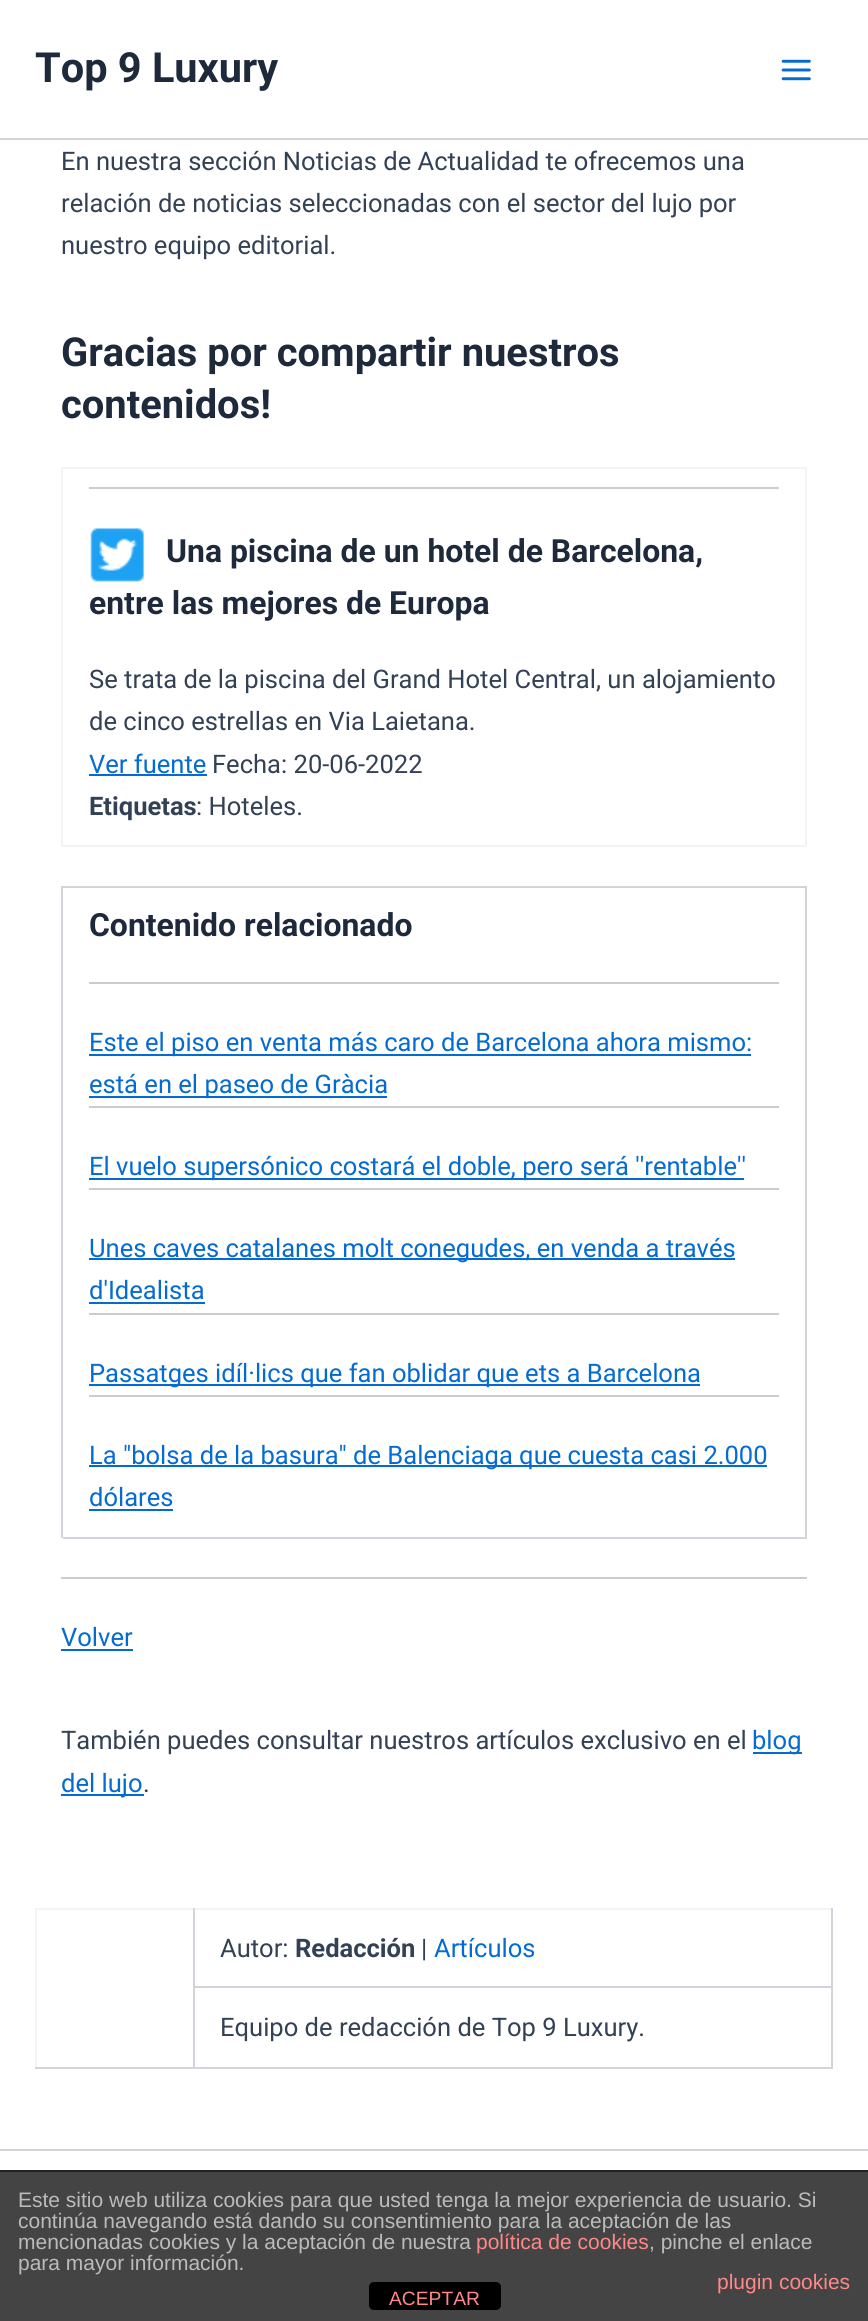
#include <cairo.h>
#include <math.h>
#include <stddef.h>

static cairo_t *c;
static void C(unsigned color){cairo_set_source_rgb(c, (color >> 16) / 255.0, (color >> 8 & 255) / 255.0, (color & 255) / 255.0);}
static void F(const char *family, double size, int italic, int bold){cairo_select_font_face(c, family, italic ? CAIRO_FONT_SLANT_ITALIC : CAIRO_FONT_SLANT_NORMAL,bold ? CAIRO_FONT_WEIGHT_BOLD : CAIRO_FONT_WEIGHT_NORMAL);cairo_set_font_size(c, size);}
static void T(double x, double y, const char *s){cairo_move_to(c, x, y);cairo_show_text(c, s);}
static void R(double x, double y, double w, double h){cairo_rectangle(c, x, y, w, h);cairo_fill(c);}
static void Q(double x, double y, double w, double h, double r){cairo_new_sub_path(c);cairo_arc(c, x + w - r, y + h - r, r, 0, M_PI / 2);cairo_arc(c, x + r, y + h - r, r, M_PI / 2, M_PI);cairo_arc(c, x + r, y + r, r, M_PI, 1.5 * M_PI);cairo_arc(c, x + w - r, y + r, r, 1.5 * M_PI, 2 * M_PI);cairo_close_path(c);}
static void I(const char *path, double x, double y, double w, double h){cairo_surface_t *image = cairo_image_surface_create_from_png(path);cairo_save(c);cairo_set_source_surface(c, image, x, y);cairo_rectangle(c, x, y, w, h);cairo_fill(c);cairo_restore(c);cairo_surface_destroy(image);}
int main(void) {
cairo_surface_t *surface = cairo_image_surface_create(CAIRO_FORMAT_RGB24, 868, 2321);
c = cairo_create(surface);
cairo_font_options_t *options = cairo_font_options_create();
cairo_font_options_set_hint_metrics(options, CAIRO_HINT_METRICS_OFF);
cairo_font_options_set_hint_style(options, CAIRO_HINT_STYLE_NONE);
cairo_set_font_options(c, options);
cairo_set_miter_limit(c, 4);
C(0xffffff);
cairo_paint(c);
C(0xd1d5db);
R(0,138,868,2);
F("Roboto",41.5,0,1);
C(0x1e293b);
T(35,82,"Top 9 Luxury");
I("1.png",781,59,30,22);
F("Roboto",25.55,0,0);
C(0x334155);
T(61,170,"En nuestra sección Noticias de Actualidad te ofrecemos una");
T(61,212,"relación de noticias seleccionadas con el sector del lujo por");
T(61,254,"nuestro equipo editorial.");
F("Roboto",39.9,0,1);
C(0x1e293b);
T(61,366,"Gracias por compartir nuestros");
T(61,418,"contenidos!");
C(0xf4f4f4);
R(61,467,746,2);
R(805,467,2,380);
R(61,845,746,2);
R(61,467,2,380);
C(0xcccccc);
R(89,487,690,2);
I("2.png",90,528,55,55);
F("Roboto",31.9,0,1);
C(0x1e293b);
T(166,562,"Una piscina de un hotel de Barcelona,");
T(89,614,"entre las mejores de Europa");
F("Roboto",25.55,0,0);
C(0x334155);
T(89,688,"Se trata de la piscina del Grand Hotel Central, un alojamiento");
T(89,730,"de cinco estrellas en Via Laietana.");
C(0x046bd2);
T(89,773,"Ver fuente");
R(89,774,118,2);
C(0x334155);
T(212,773,"Fecha: 20-06-2022");
F("Roboto",25.55,0,1);
T(89,815,"Etiquetas");
F("Roboto",25.55,0,0);
T(196,815,": Hoteles.");
C(0xd1d5db);
R(61,886,746,2);
R(61,886,2,652);
R(805,887,2,651);
R(63,1537,744,2);
F("Roboto",31.9,0,1);
C(0x1e293b);
T(89,936,"Contenido relacionado");
C(0xcccccc);
R(89,982,690,2);
C(0x046bd2);
R(89,1054,662,2);
F("Roboto",25.55,0,0);
T(89,1051,"Este el piso en venta más caro de Barcelona ahora mismo:");
R(89,1096,298,2);
T(89,1093,"está en el paseo de Gràcia");
C(0xcccccc);
R(89,1106,690,2);
C(0x046bd2);
R(89,1178,655,2);
T(89,1175,"El vuelo supersónico costará el doble, pero será ''rentable''");
C(0xcccccc);
R(89,1188,690,2);
C(0x046bd2);
R(89,1258,646,2);
T(89,1257,"Unes caves catalanes molt conegudes, en venda a través");
T(89,1299,"d'Idealista");
R(89,1302,116,2);
C(0xcccccc);
R(89,1313,690,2);
C(0x046bd2);
R(89,1384,611,2);
T(89,1382,"Passatges idíl·lics que fan oblidar que ets a Barcelona");
C(0xcccccc);
R(89,1395,690,2);
C(0x046bd2);
R(89,1465,678,2);
T(89,1464,"La \"bolsa de la basura\" de Balenciaga que cuesta casi 2.000");
T(89,1506,"dólares");
R(89,1509,84,2);
C(0xcccccc);
R(61,1577,746,2);
C(0x046bd2);
T(61,1646,"Volver");
R(61,1649,72,2);
C(0x334155);
T(61,1749,"También puedes consultar nuestros artículos exclusivo en el");
C(0x046bd2);
R(753,1752,49,2);
T(752,1749,"blog");
R(61,1794,83,2);
T(61,1792,"del lujo");
C(0x334155);
T(143,1792,".");
C(0xf4f4f4);
R(35,1908,798,2);
R(35,1908,2,161);
C(0xd1d5db);
R(831,1908,2,161);
R(193,1986,640,2);
R(193,2067,640,2);
R(193,1908,2,161);
R(35,2067,159,2);
C(0x334155);
T(220,1957,"Autor:");
F("Roboto",25.55,0,1);
T(295,1957,"Redacción");
F("Roboto",25.55,0,0);
T(421,1957,"|");
C(0x046bd2);
T(434,1957,"Artículos");
C(0x334155);
T(220,2036,"Equipo de redacción de Top 9 Luxury.");
C(0xd1d5db);
R(0,2149,868,2);
C(0x444444);
R(0,2172,868,149);
C(0x222222);
R(0,2170,868,2);
F("Liberation Sans",21,0,0);
C(0xbbbbbb);
T(18,2207,"Este sitio web utiliza cookies para que usted tenga la mejor experiencia de usuario. Si");
T(18,2228,"continúa navegando está dando su consentimiento para la aceptación de las");
T(18,2249,"mencionadas cookies y la aceptación de nuestra");
C(0xff8888);
T(476,2249,"política de cookies");
C(0xbbbbbb);
T(649,2249,", pinche el enlace");
T(18,2270,"para mayor información.");
C(0xff8888);
T(717,2289,"plugin cookies");
C(0x000000);
Q(369,2282,132,28,5);
cairo_fill(c);
F("Liberation Sans",19.25,0,0);
C(0xff8888);
T(389,2305,"ACEPTAR");
cairo_surface_write_to_png(surface, "o.png");
cairo_font_options_destroy(options);
cairo_destroy(c);
cairo_surface_destroy(surface);
return 0;
}
